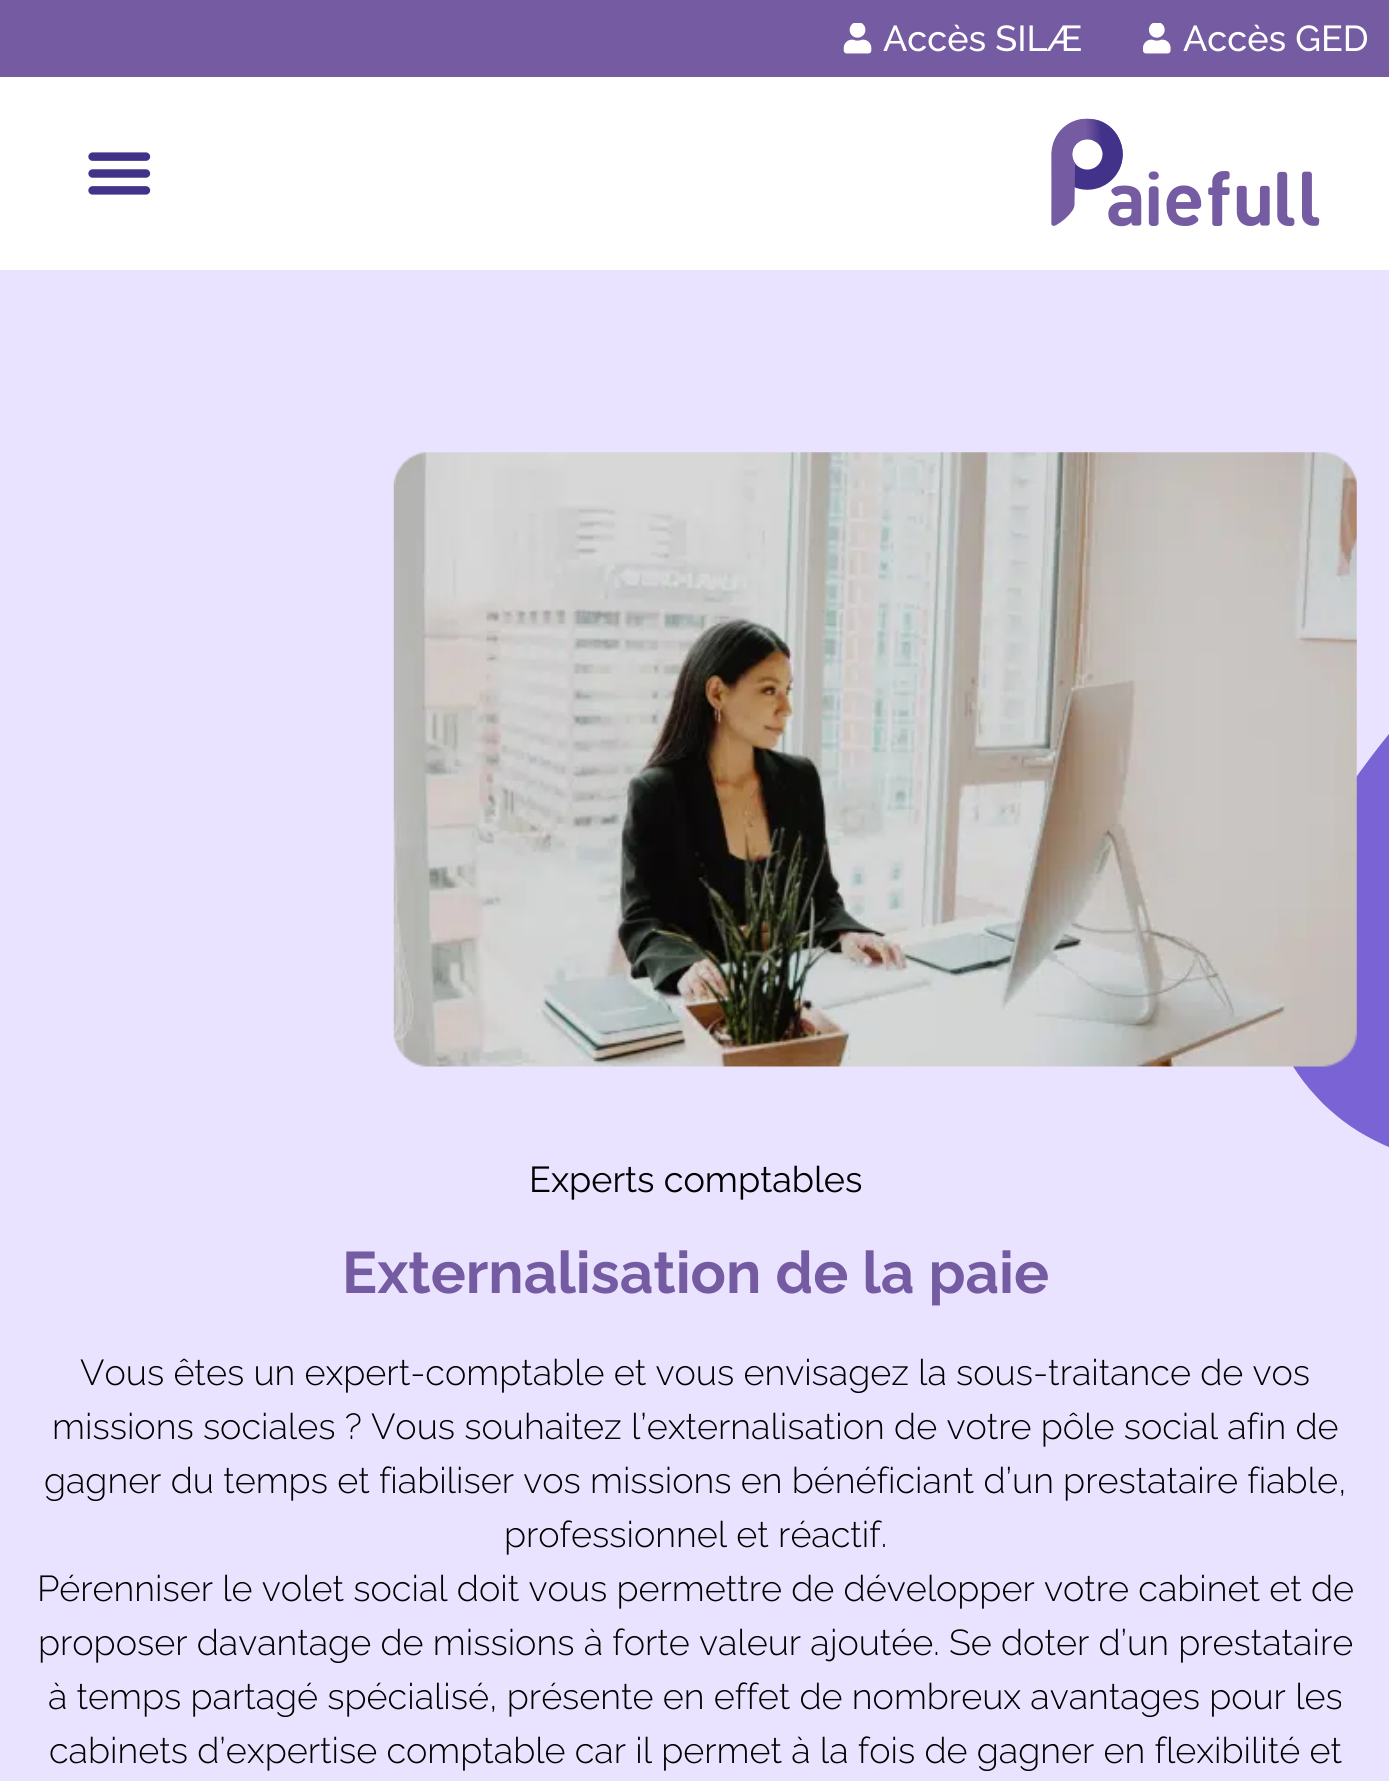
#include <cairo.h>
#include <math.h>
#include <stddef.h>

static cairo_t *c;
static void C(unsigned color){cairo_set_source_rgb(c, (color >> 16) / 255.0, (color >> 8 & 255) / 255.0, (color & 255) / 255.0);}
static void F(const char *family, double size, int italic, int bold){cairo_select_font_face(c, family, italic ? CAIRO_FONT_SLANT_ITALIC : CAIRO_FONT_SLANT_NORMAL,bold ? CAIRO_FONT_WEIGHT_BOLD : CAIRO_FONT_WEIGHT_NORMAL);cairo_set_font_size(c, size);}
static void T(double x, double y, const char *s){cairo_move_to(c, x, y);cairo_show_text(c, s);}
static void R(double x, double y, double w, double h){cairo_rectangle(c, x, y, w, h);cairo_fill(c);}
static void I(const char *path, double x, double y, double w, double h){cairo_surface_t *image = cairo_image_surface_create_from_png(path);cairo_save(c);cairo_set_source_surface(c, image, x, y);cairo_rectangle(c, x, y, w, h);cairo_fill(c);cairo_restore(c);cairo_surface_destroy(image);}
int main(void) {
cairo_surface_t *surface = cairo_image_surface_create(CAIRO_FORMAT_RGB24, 1389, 1781);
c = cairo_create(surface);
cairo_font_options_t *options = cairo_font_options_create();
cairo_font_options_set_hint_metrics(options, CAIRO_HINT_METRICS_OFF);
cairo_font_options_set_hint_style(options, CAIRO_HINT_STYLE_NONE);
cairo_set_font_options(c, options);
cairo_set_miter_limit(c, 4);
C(0xffffff);
cairo_paint(c);
C(0x745ba2);
R(0,0,1389,77);
I("1.png",843,23,29,31);
F("Raleway Medium",36,0,0);
C(0xffffff);
T(883,51,"Accès SILÆ");
I("2.png",1143,23,28,31);
T(1183,51,"Accès GED");
I("3.png",88,152,63,43);
I("4.png",1051,118,269,109);
C(0xe9e3ff);
R(0,270,1389,1511);
I("5.png",1293,734,96,413);
I("6.png",393,452,964,615);
F("Raleway",36,0,0);
C(0x000000);
T(529,1192,"Experts comptables");
F("Raleway",58.5,0,1);
C(0x745ba2);
T(342,1293,"Externalisation de la paie");
F("Raleway Light",36,0,0);
C(0x000000);
T(80,1385,"Vous êtes un expert-comptable et vous envisagez la sous-traitance de vos");
T(52,1439,"missions sociales ? Vous souhaitez l’externalisation de votre pôle social afin de");
T(44,1493,"gagner du temps et fiabiliser vos missions en bénéficiant d’un prestataire fiable,");
T(504,1547,"professionnel et réactif.");
T(37,1601,"Pérenniser le volet social doit vous permettre de développer votre cabinet et de");
T(38,1655,"proposer davantage de missions à forte valeur ajoutée. Se doter d’un prestataire");
T(48,1709,"à temps partagé spécialisé, présente en effet de nombreux avantages pour les");
T(49,1763,"cabinets d’expertise comptable car il permet à la fois de gagner en flexibilité et");
cairo_surface_write_to_png(surface, "o.png");
cairo_font_options_destroy(options);
cairo_destroy(c);
cairo_surface_destroy(surface);
return 0;
}
